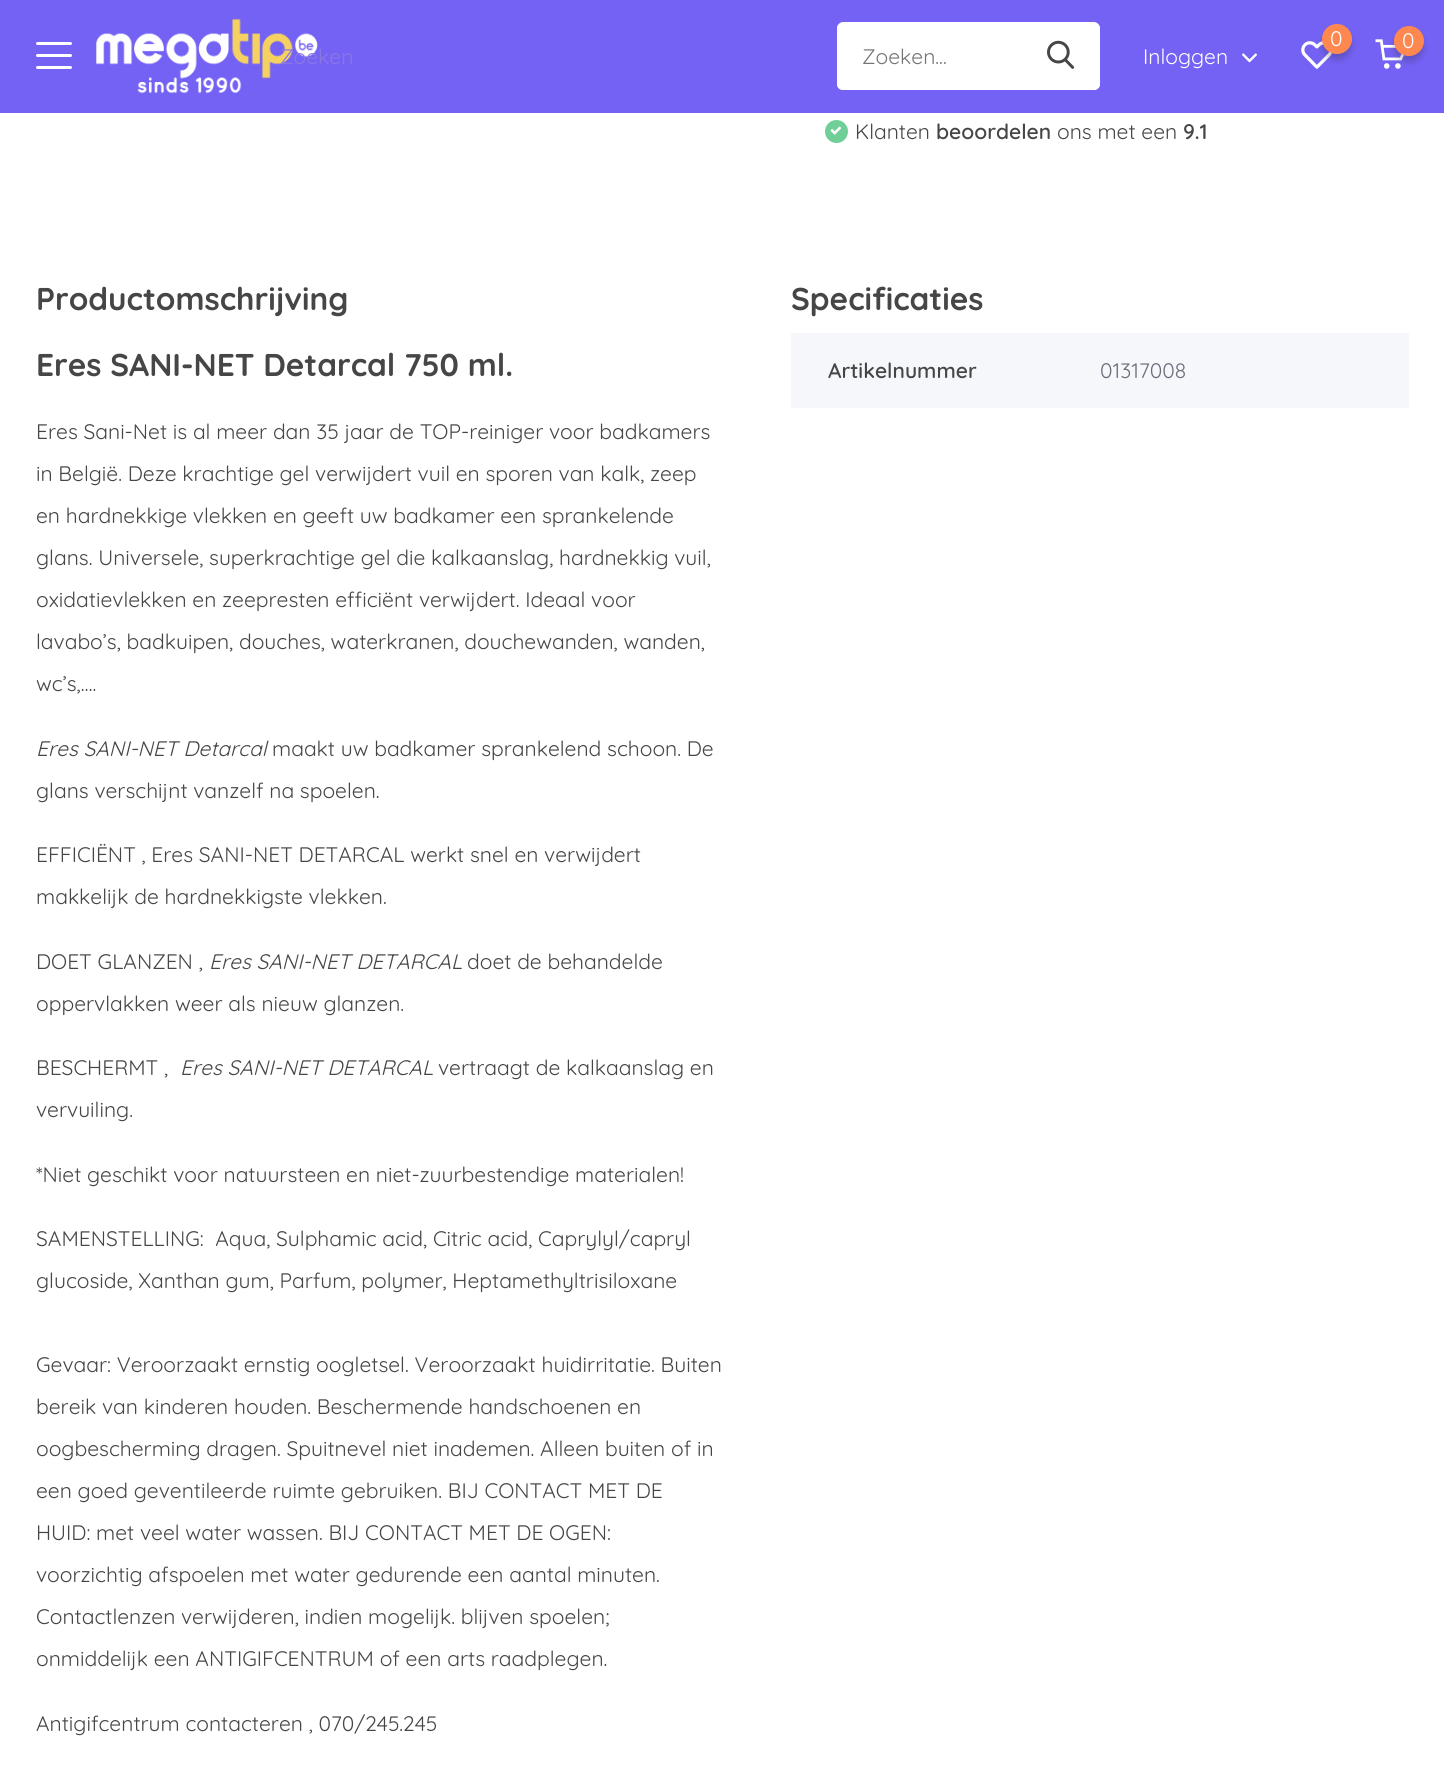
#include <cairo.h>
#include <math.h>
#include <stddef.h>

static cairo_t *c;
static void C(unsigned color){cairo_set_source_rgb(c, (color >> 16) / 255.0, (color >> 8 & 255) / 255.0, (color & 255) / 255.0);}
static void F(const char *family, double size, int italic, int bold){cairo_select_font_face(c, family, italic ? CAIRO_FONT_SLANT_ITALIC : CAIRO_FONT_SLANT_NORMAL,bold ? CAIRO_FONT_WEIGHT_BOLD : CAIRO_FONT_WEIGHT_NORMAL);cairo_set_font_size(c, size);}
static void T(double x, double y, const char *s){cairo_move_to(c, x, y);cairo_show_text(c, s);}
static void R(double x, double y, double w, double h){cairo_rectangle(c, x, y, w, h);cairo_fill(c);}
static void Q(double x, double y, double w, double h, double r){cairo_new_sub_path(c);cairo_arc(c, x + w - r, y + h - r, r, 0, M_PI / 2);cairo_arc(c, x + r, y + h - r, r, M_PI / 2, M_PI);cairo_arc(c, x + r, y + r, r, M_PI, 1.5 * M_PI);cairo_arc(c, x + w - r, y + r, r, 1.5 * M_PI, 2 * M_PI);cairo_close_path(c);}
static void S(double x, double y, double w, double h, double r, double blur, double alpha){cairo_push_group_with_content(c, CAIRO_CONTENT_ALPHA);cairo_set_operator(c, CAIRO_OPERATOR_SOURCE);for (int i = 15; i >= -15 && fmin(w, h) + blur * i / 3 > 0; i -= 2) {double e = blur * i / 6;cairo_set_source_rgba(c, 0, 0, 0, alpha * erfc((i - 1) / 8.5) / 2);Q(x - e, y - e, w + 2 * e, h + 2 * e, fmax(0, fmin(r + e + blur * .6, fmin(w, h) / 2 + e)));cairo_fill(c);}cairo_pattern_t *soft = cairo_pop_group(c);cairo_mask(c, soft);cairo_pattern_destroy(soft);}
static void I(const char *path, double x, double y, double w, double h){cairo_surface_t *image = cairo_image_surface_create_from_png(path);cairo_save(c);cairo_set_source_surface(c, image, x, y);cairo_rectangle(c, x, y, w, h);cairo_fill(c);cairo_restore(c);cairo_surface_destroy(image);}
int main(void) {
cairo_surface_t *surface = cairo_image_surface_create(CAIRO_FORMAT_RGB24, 1444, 1790);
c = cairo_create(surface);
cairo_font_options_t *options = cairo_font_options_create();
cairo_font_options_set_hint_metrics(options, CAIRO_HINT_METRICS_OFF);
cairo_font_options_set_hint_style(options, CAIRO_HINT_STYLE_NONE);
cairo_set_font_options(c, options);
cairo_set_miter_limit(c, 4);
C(0xffffff);
cairo_paint(c);
C(0x7462f5);
R(0,0,1444,113);
I("1.png",96,18,222,76);
F("Quicksand",21,0,0);
C(0x8a77e4);
T(280,64,"Zoeken");
C(0xffffff);
Q(36,42,36,3,1.5);
cairo_fill(c);
Q(36,54,36,3,1.5);
cairo_fill(c);
Q(36,66,36,3,1.5);
cairo_fill(c);
I("2.png",1301,41,31,28);
C(0x282830);
S(1322,30,30,30,15,3,.25);
C(0xff8850);
cairo_arc(c,1337,39,15,0,2 * M_PI);
cairo_fill(c);
C(0xffffff);
T(1330,46,"0");
I("3.png",1375,39,29,30);
C(0x282830);
S(1394,32,30,30,15,3,.25);
C(0xff8850);
cairo_arc(c,1409,41,15,0,2 * M_PI);
cairo_fill(c);
C(0xffffff);
T(1402,48,"0");
cairo_new_path(c);
cairo_move_to(c,1025,23);
cairo_line_to(c,1094,23);
cairo_curve_to(c,1097.5,23,1100,25.5,1100,29);
cairo_line_to(c,1100,84);
cairo_curve_to(c,1100,87.5,1097.5,90,1094,90);
cairo_line_to(c,1025,90);
cairo_close_path(c);
cairo_fill(c);
cairo_set_fill_rule(c,CAIRO_FILL_RULE_EVEN_ODD);
cairo_new_path(c);
cairo_move_to(c,1024,22);
cairo_line_to(c,1094,22);
cairo_curve_to(c,1097,22,1100,25,1100,28);
cairo_line_to(c,1100,84);
cairo_curve_to(c,1100,87,1097,90,1094,90);
cairo_line_to(c,1024,90);
cairo_close_path(c);
cairo_move_to(c,1024,24);
cairo_line_to(c,1094,24);
cairo_curve_to(c,1096,24,1098,26,1098,28);
cairo_line_to(c,1098,84);
cairo_curve_to(c,1098,86,1096,88,1094,88);
cairo_line_to(c,1024,88);
cairo_close_path(c);
cairo_fill(c);
cairo_new_path(c);
cairo_move_to(c,843,23);
cairo_line_to(c,1025,23);
cairo_line_to(c,1025,90);
cairo_line_to(c,843,90);
cairo_curve_to(c,839.5,90,837,87.5,837,84);
cairo_line_to(c,837,29);
cairo_curve_to(c,837,25.5,839.5,23,843,23);
cairo_close_path(c);
cairo_fill(c);
cairo_new_path(c);
cairo_move_to(c,843,22);
cairo_line_to(c,1024,22);
cairo_line_to(c,1024,90);
cairo_line_to(c,843,90);
cairo_curve_to(c,840,90,837,87,837,84);
cairo_line_to(c,837,28);
cairo_curve_to(c,837,25,840,22,843,22);
cairo_close_path(c);
cairo_move_to(c,843,24);
cairo_line_to(c,1024,24);
cairo_line_to(c,1024,88);
cairo_line_to(c,843,88);
cairo_curve_to(c,841,88,838,86,838,84);
cairo_line_to(c,838,28);
cairo_curve_to(c,838,26,841,24,843,24);
cairo_close_path(c);
cairo_fill(c);
C(0x757575);
T(862,64,"Zoeken...");
I("4.png",1047,40,28,29);
C(0xffffff);
T(1143,64,"Inloggen");
I("5.png",1242,53,15,10);
C(0x6fcf97);
cairo_arc(c,836.5,131.5,11.5,0,2 * M_PI);
cairo_fill(c);
I("6.png",830,126,12,9);
C(0x464646);
T(855,139,"Klanten");
F("Quicksand SemiBold",21,0,0);
T(936,139,"beoordelen");
F("Quicksand",21,0,0);
T(1057,139,"ons met een");
F("Quicksand SemiBold",21,0,0);
T(1183,139,"9.1");
F("Quicksand",31.5,0,1);
T(36,310,"Productomschrijving");
T(36,376,"Eres SANI-NET Detarcal 750 ml.");
F("Quicksand",21,0,0);
T(36,439,"Eres Sani-Net is al meer dan 35 jaar de TOP-reiniger voor badkamers");
T(36,481,"in België. Deze krachtige gel verwijdert vuil en sporen van kalk, zeep");
T(36,523,"en hardnekkige vlekken en geeft uw badkamer een sprankelende");
T(36,565,"glans. Universele, superkrachtige gel die kalkaanslag, hardnekkig vuil,");
T(36,607,"oxidatievlekken en zeepresten efficiënt verwijdert. Ideaal voor");
T(36,649,"lavabo’s, badkuipen, douches, waterkranen, douchewanden, wanden,");
T(36,691,"wc’s,….");
F("Quicksand",21,1,0);
T(36,756,"Eres SANI-NET Detarcal");
F("Quicksand",21,0,0);
T(272,756,"maakt uw badkamer sprankelend schoon. De");
T(36,798,"glans verschijnt vanzelf na spoelen.");
T(36,862,"EFFICIËNT , Eres SANI-NET DETARCAL werkt snel en verwijdert");
T(36,904,"makkelijk de hardnekkigste vlekken.");
T(36,969,"DOET GLANZEN ,");
F("Quicksand",21,1,0);
T(209,969,"Eres SANI-NET DETARCAL");
F("Quicksand",21,0,0);
T(467,969,"doet de behandelde");
T(36,1011,"oppervlakken weer als nieuw glanzen.");
T(36,1075,"BESCHERMT ,");
F("Quicksand",21,1,0);
T(180,1075,"Eres SANI-NET DETARCAL");
F("Quicksand",21,0,0);
T(438,1075,"vertraagt de kalkaanslag en");
T(36,1117,"vervuiling.");
T(36,1182,"*Niet geschikt voor natuursteen en niet-zuurbestendige materialen!");
T(36,1246,"SAMENSTELLING:  Aqua, Sulphamic acid, Citric acid, Caprylyl/capryl");
T(36,1288,"glucoside, Xanthan gum, Parfum, polymer, Heptamethyltrisiloxane");
T(36,1372,"Gevaar: Veroorzaakt ernstig oogletsel. Veroorzaakt huidirritatie. Buiten");
T(36,1414,"bereik van kinderen houden. Beschermende handschoenen en");
T(36,1456,"oogbescherming dragen. Spuitnevel niet inademen. Alleen buiten of in");
T(36,1498,"een goed geventileerde ruimte gebruiken. BIJ CONTACT MET DE");
T(36,1540,"HUID: met veel water wassen. BIJ CONTACT MET DE OGEN:");
T(36,1582,"voorzichtig afspoelen met water gedurende een aantal minuten.");
T(36,1624,"Contactlenzen verwijderen, indien mogelijk. blijven spoelen;");
T(36,1666,"onmiddelijk een ANTIGIFCENTRUM of een arts raadplegen.");
T(36,1731,"Antigifcentrum contacteren , 070/245.245");
F("Quicksand",31.5,0,1);
T(791,310,"Specificaties");
C(0xf5f7fa);
R(791,333,618,75);
F("Quicksand SemiBold",21,0,0);
C(0x464646);
T(828,378,"Artikelnummer");
F("Quicksand",21,0,0);
C(0x6c6c7c);
T(1100,378,"01317008");
cairo_surface_write_to_png(surface, "o.png");
cairo_font_options_destroy(options);
cairo_destroy(c);
cairo_surface_destroy(surface);
return 0;
}
